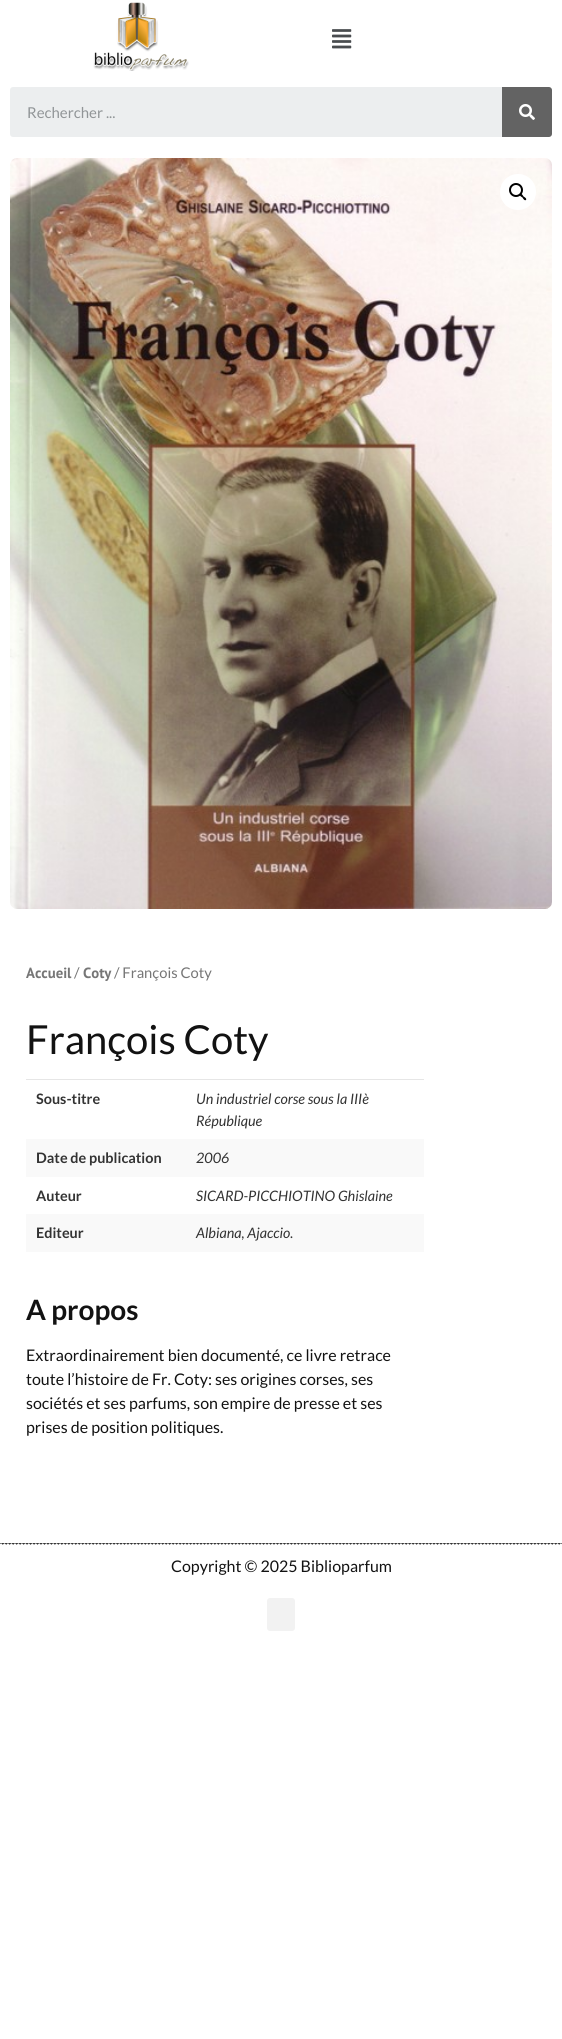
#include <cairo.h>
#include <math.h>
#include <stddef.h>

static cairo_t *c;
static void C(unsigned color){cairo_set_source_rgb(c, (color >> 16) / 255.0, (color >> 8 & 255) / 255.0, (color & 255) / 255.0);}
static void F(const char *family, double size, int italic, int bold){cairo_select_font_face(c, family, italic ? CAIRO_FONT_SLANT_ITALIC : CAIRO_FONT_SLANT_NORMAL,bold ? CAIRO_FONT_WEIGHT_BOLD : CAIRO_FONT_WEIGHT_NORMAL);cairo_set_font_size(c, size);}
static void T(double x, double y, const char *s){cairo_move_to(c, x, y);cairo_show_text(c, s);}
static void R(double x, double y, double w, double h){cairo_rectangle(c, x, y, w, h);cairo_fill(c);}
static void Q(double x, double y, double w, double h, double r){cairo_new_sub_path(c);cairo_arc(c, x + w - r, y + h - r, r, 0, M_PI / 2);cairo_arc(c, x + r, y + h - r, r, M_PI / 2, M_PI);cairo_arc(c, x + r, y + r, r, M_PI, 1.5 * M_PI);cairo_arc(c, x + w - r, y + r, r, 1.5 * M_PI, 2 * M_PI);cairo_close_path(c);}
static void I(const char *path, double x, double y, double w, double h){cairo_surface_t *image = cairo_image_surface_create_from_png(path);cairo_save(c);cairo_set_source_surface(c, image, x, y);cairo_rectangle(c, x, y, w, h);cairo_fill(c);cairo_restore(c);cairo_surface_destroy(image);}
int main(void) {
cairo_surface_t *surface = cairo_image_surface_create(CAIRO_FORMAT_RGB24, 562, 2039);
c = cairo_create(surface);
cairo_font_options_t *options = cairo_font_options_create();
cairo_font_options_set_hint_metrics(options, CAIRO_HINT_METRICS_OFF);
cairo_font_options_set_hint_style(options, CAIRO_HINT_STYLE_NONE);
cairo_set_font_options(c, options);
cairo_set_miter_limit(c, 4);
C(0xffffff);
cairo_paint(c);
I("1.png",93,2,96,69);
I("2.png",332,29,20,20);
C(0xeceeef);
Q(10,87,542,50,3);
cairo_fill(c);
F("Lato",15,0,0);
C(0x919597);
T(27,118,"Rechercher ...");
C(0x636363);
cairo_new_path(c);
cairo_move_to(c,502,87);
cairo_line_to(c,549,87);
cairo_curve_to(c,550.5,87,552,88.5,552,90);
cairo_line_to(c,552,134);
cairo_curve_to(c,552,135.5,550.5,137,549,137);
cairo_line_to(c,502,137);
cairo_close_path(c);
cairo_fill(c);
I("3.png",519,104,16,16);
I("4.png",10,158,542,751);
C(0xffffff);
cairo_arc(c,518,192,18,0,2 * M_PI);
cairo_fill(c);
cairo_arc(c,516,190,6,0,2 * M_PI);
C(0x000000);
cairo_stroke(c);
cairo_new_path(c);
cairo_move_to(c,520,194);
cairo_curve_to(c,521.5,193,523,195.5,523.5,196.5);
cairo_curve_to(c,524.5,197,527,198.5,526,200);
cairo_curve_to(c,524.5,201,523,198.5,522.5,197.5);
cairo_curve_to(c,521.5,197,519,195.5,520,194);
cairo_close_path(c);
cairo_fill(c);
F("PT Sans",14.75,0,1);
C(0x767676);
T(26,978,"Accueil");
F("Lato",14.75,0,0);
T(74,978,"/");
F("PT Sans",14.75,0,1);
T(83,978,"Coty");
F("Lato",14.75,0,0);
T(114,978,"/ François Coty");
F("Lato",40,0,0);
C(0x121212);
T(26,1054,"François Coty");
C(0xe6e6e6);
R(26,1079,398,1);
F("Lato",14.4,0,1);
C(0x333333);
T(36,1104,"Sous-titre");
F("Lato",14.4,1,0);
T(196,1104,"Un industriel corse sous la IIIè");
T(196,1126,"République");
C(0xf9f9f9);
R(26,1139,398,38);
F("Lato",14.4,0,1);
C(0x333333);
T(36,1163,"Date de publication");
F("Lato",14.4,1,0);
T(196,1163,"2006");
F("Lato",14.4,0,1);
T(36,1201,"Auteur");
F("Lato",14.4,1,0);
T(196,1201,"SICARD-PICCHIOTINO Ghislaine");
C(0xf9f9f9);
R(26,1214,398,38);
F("Lato",14.4,0,1);
C(0x333333);
T(36,1238,"Editeur");
F("Lato",14.4,1,0);
T(196,1238,"Albiana, Ajaccio.");
F("Lato",28,0,1);
C(0x121212);
T(26,1320,"A propos");
F("Lato",16,0,0);
T(26,1361,"Extraordinairement bien documenté, ce livre retrace");
T(26,1385,"toute l’histoire de Fr. Coty: ses origines corses, ses");
T(26,1409,"sociétés et ses parfums, son empire de presse et ses");
T(26,1433,"prises de position politiques.");
I("5.png",0,1543,562,2);
T(171,1572,"Copyright © 2025 Biblioparfum");
C(0xf2f2f2);
Q(267,1598,28,33,3);
cairo_fill(c);
cairo_surface_write_to_png(surface, "o.png");
cairo_font_options_destroy(options);
cairo_destroy(c);
cairo_surface_destroy(surface);
return 0;
}
